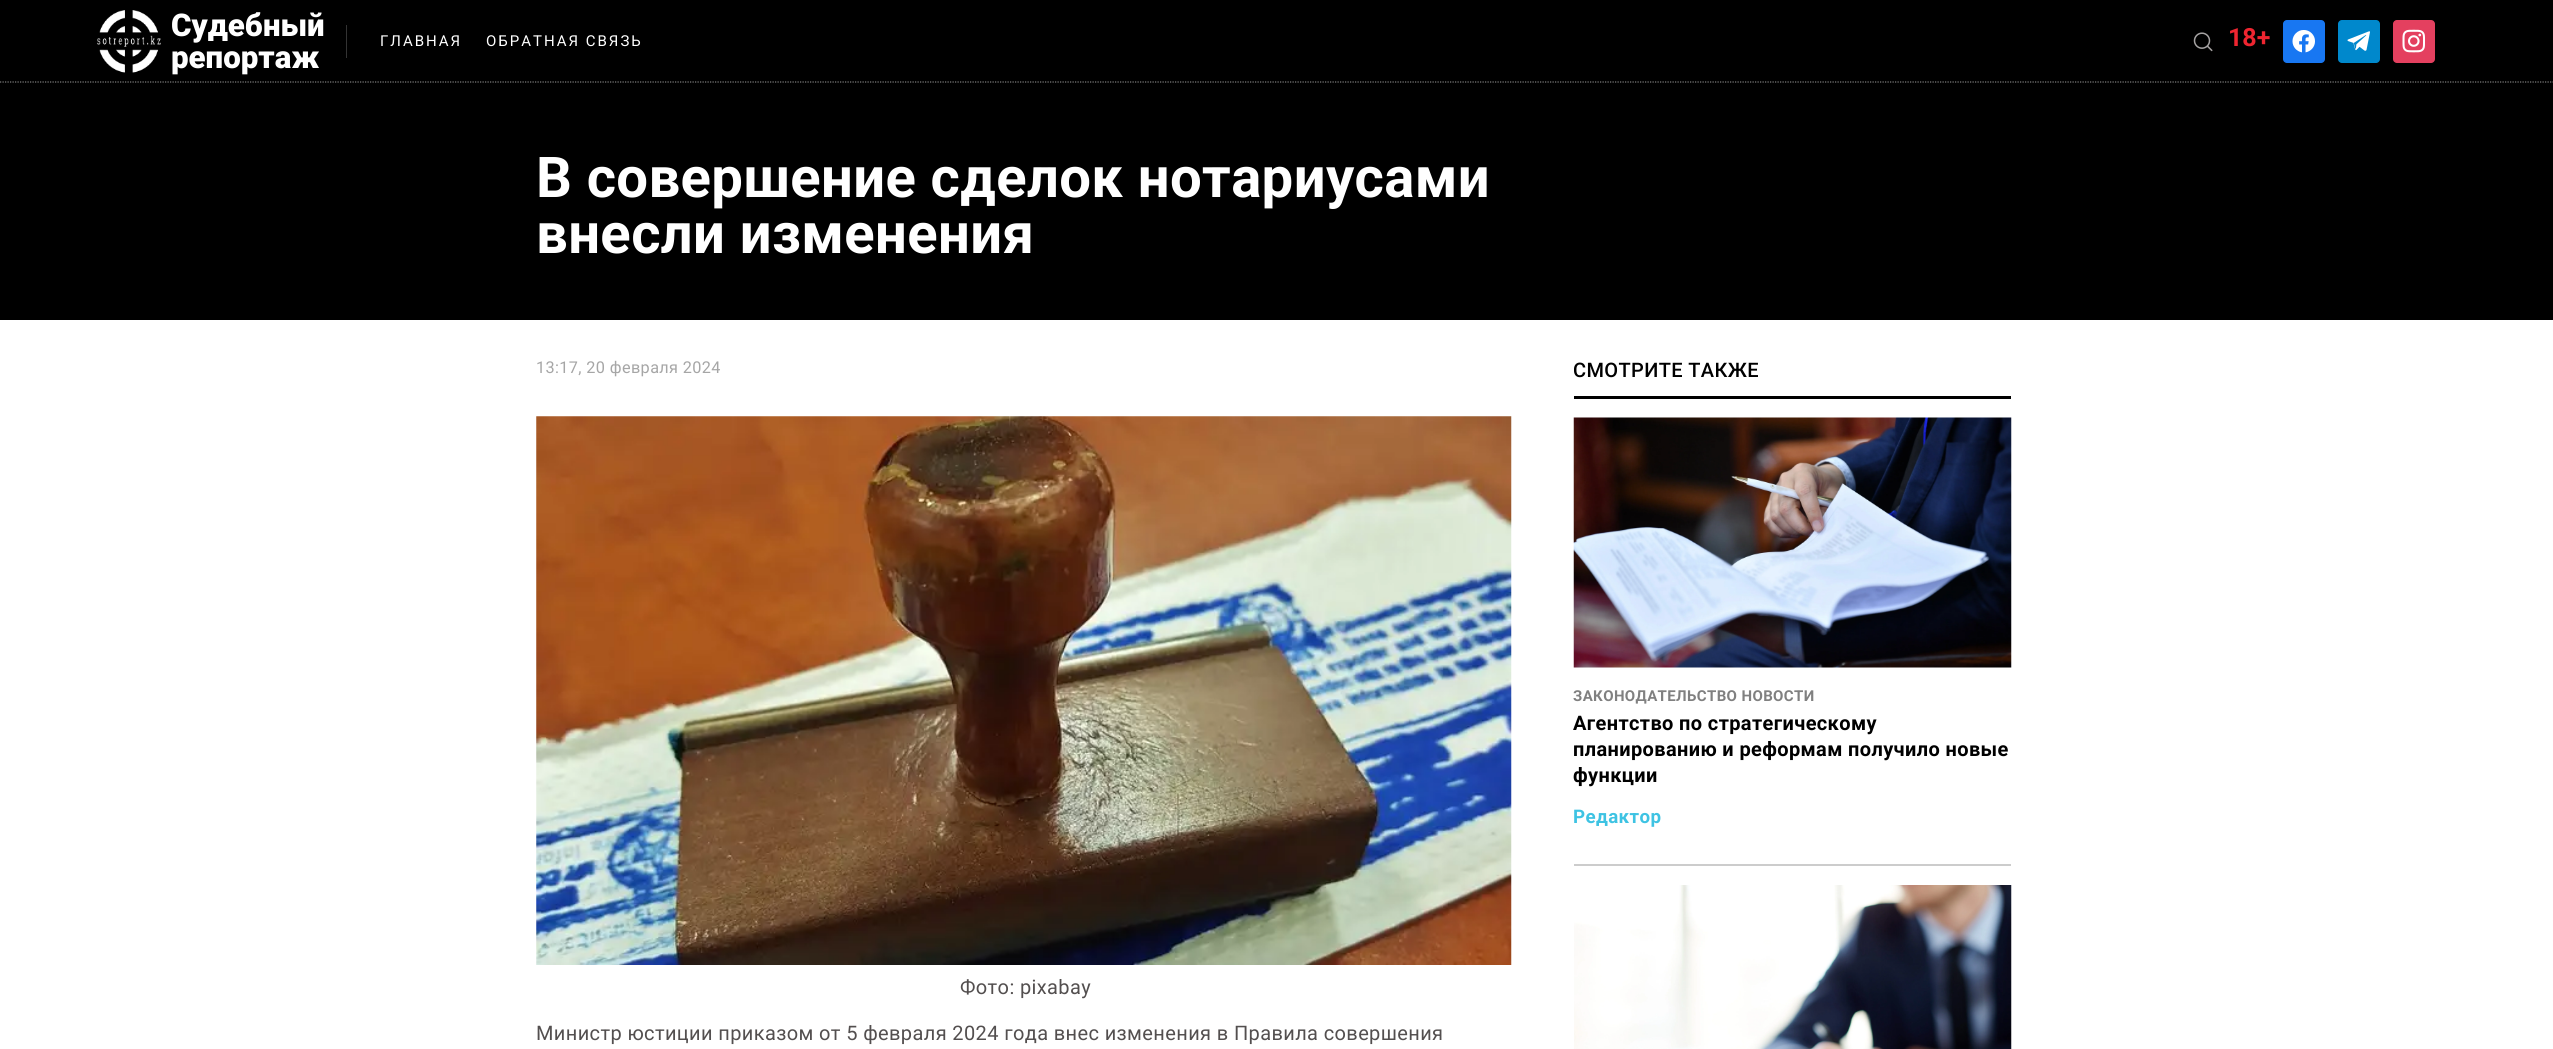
#include <cairo.h>
#include <math.h>
#include <stddef.h>

static cairo_t *c;
static void C(unsigned color){cairo_set_source_rgb(c, (color >> 16) / 255.0, (color >> 8 & 255) / 255.0, (color & 255) / 255.0);}
static void F(const char *family, double size, int italic, int bold){cairo_select_font_face(c, family, italic ? CAIRO_FONT_SLANT_ITALIC : CAIRO_FONT_SLANT_NORMAL,bold ? CAIRO_FONT_WEIGHT_BOLD : CAIRO_FONT_WEIGHT_NORMAL);cairo_set_font_size(c, size);}
static void T(double x, double y, const char *s){cairo_move_to(c, x, y);cairo_show_text(c, s);}
static void L(double x, double y, const char *s, double letter, double word){cairo_move_to(c, x, y);while (*s) {char ch[5] = {0};int n = 0;do ch[n++] = *s++; while ((*s & 0xC0) == 0x80);cairo_show_text(c, ch);cairo_rel_move_to(c, letter + word * (*ch == ' '), 0);}}
static void R(double x, double y, double w, double h){cairo_rectangle(c, x, y, w, h);cairo_fill(c);}
static void Q(double x, double y, double w, double h, double r){cairo_new_sub_path(c);cairo_arc(c, x + w - r, y + h - r, r, 0, M_PI / 2);cairo_arc(c, x + r, y + h - r, r, M_PI / 2, M_PI);cairo_arc(c, x + r, y + r, r, M_PI, 1.5 * M_PI);cairo_arc(c, x + w - r, y + r, r, 1.5 * M_PI, 2 * M_PI);cairo_close_path(c);}
static void I(const char *path, double x, double y, double w, double h){cairo_surface_t *image = cairo_image_surface_create_from_png(path);cairo_save(c);cairo_set_source_surface(c, image, x, y);cairo_rectangle(c, x, y, w, h);cairo_fill(c);cairo_restore(c);cairo_surface_destroy(image);}
int main(void) {
cairo_surface_t *surface = cairo_image_surface_create(CAIRO_FORMAT_RGB24, 2553, 1049);
c = cairo_create(surface);
cairo_font_options_t *options = cairo_font_options_create();
cairo_font_options_set_hint_metrics(options, CAIRO_HINT_METRICS_OFF);
cairo_font_options_set_hint_style(options, CAIRO_HINT_STYLE_NONE);
cairo_set_font_options(c, options);
cairo_set_miter_limit(c, 4);
C(0xffffff);
cairo_paint(c);
C(0x000000);
R(0,0,2553,320);
cairo_new_path(c);
cairo_move_to(c,0,82);
cairo_line_to(c,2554,82);
C(0x808080);
cairo_set_line_width(c,1.2);
cairo_set_dash(c,(double[]){1.25,1.25},2,0);
cairo_stroke(c);
I("1.png",97,10,64,63);
F("Roboto Black",31.25,0,0);
C(0xffffff);
T(171,36,"Судебный");
T(171,68,"репортаж");
C(0x333333);
R(346,25,1,33);
F("Roboto",15,0,0);
C(0xffffff);
L(380,46,"ГЛАВНАЯ",2,0);
L(486,46,"ОБРАТНАЯ СВЯЗЬ",2,0);
I("2.png",2193,32,20,20);
F("Roboto",25,0,1);
C(0xef2530);
T(2228,46,"18+");
C(0x1877f2);
Q(2283,20,42,43,4);
cairo_fill(c);
I("3.png",2292,30,23,23);
C(0x0088cc);
Q(2338,20,42,43,4);
cairo_fill(c);
I("4.png",2347,31,23,20);
C(0xe4405f);
Q(2393,20,42,43,4);
cairo_fill(c);
I("5.png",2402,29,23,24);
F("Roboto",56.25,0,1);
C(0xffffff);
L(536,197,"В совершение сделок нотариусами",.38,0);
L(536,253,"внесли изменения",.38,0);
F("Roboto",16.25,0,0);
C(0xa6a6a6);
L(536,373,"13:17, 20 февраля 2024",.38,0);
I("6.png",536,416,976,549);
F("Roboto",20,0,0);
C(0x534f4f);
L(960,994,"Фото: pixabay",.38,0);
L(536,1040,"Министр юстиции приказом от 5 февраля 2024 года внес изменения в Правила совершения",.38,0);
C(0x000000);
R(1574,396,437,3);
F("Roboto Medium",20,0,0);
L(1573,377,"СМОТРИТЕ ТАКЖЕ",.38,0);
C(0xcccccc);
R(1574,864,437,2);
I("7.png",1573,417,439,251);
F("Roboto",15,0,1);
C(0x808080);
L(1573,701,"ЗАКОНОДАТЕЛЬСТВО НОВОСТИ",.38,0);
F("Roboto",20,0,1);
C(0x000000);
L(1573,730,"Агентство по стратегическому",.38,0);
L(1573,756,"планированию и реформам получило новые",.38,0);
L(1573,782,"функции",.38,0);
F("Roboto",18.75,0,1);
C(0x3ec3e3);
L(1573,823,"Редактор",.38,0);
I("8.png",1574,885,438,164);
cairo_surface_write_to_png(surface, "o.png");
cairo_font_options_destroy(options);
cairo_destroy(c);
cairo_surface_destroy(surface);
return 0;
}
